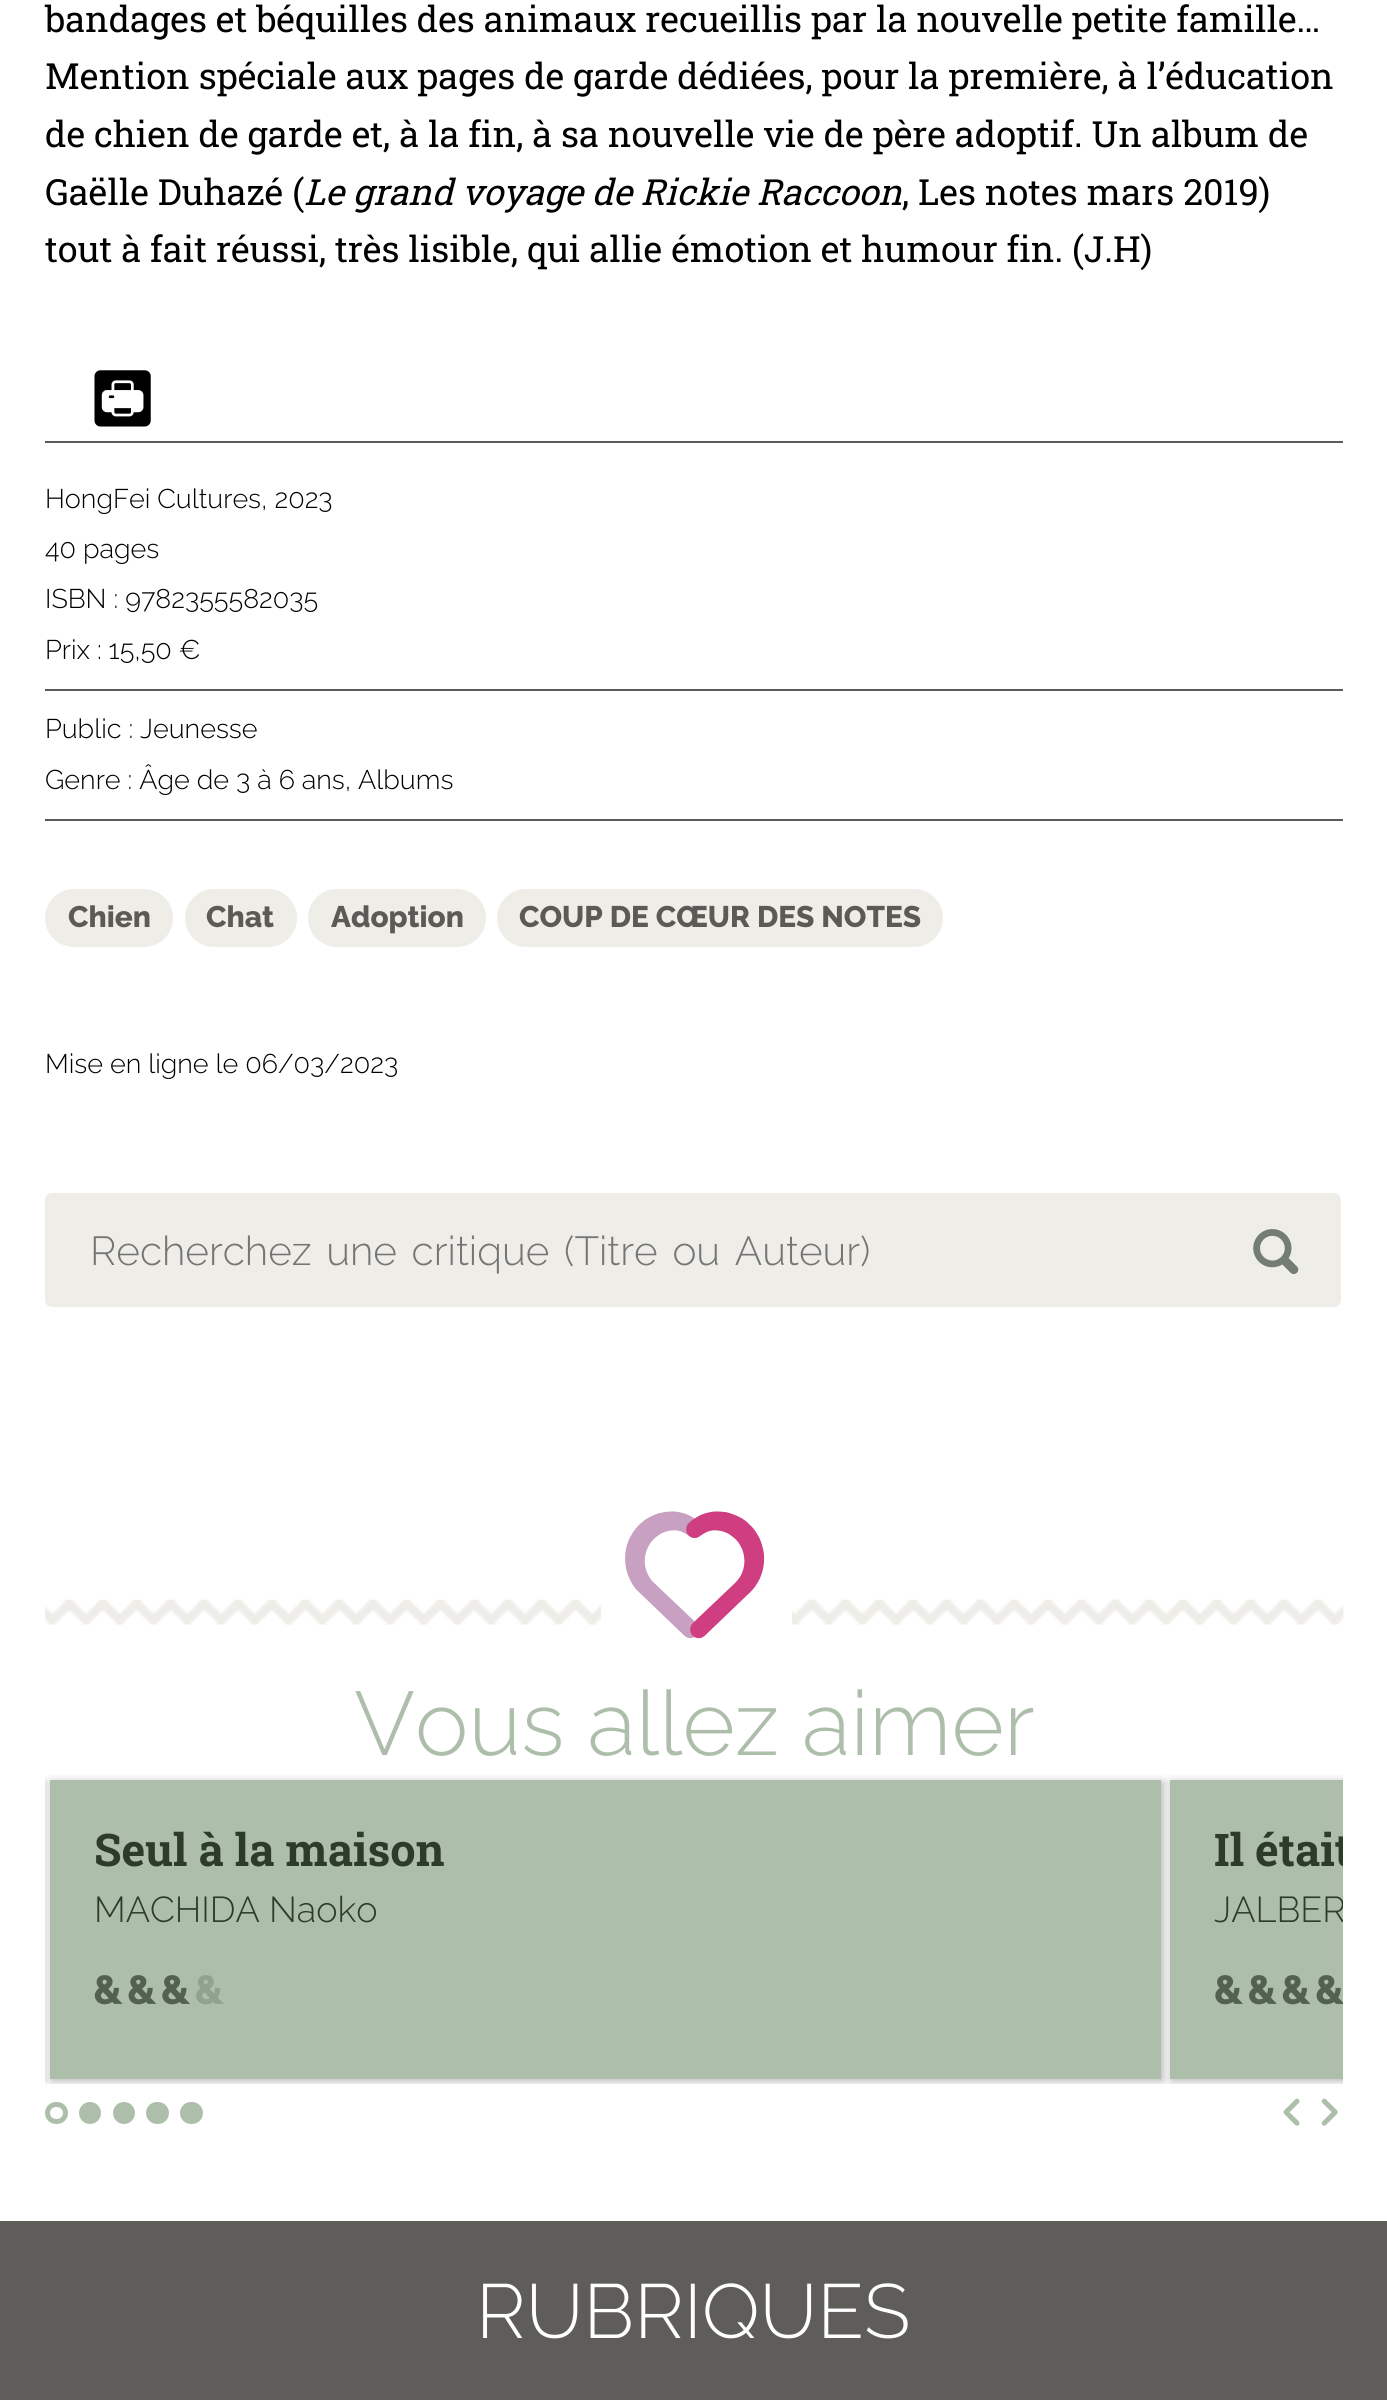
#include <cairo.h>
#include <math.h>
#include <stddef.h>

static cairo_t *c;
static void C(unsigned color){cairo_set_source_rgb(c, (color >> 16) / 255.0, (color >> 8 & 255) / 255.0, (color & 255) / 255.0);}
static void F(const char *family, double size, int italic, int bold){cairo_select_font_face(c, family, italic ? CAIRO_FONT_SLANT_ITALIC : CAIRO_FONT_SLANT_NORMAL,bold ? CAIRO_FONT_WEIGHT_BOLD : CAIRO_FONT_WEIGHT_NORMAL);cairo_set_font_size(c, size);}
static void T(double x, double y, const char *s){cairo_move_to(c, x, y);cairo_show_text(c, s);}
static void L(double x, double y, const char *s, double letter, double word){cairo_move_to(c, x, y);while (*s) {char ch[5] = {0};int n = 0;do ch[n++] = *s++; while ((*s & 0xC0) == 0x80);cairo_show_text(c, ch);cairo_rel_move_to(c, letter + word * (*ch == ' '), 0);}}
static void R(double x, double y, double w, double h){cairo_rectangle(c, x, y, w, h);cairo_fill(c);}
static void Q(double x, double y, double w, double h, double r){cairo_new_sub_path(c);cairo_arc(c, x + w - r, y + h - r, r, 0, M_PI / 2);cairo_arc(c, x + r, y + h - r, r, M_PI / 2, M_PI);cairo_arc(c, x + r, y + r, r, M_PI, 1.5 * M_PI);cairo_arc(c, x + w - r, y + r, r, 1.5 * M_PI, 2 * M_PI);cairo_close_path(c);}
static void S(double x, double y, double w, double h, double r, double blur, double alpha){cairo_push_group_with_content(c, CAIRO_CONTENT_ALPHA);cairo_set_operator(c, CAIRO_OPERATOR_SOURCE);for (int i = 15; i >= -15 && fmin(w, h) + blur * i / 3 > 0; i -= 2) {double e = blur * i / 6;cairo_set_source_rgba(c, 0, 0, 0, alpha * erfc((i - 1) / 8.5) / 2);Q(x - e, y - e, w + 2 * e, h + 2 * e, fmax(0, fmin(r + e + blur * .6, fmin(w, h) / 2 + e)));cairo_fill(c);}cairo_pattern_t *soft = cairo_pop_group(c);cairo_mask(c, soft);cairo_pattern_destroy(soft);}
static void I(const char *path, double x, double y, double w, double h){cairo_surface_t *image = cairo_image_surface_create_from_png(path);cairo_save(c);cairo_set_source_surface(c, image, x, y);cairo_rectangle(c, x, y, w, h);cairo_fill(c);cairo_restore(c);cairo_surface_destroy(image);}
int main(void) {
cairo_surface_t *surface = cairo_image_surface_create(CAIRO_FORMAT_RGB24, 1387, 2400);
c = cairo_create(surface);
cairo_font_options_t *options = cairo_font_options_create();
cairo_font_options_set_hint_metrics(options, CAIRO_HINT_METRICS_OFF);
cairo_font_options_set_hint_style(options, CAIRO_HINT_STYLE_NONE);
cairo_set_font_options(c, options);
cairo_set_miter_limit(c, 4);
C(0xffffff);
cairo_paint(c);
F("Roboto Slab",36,0,0);
C(0x000000);
T(45,32,"bandages et béquilles des animaux recueillis par la nouvelle petite famille…");
T(45,89,"Mention spéciale aux pages de garde dédiées, pour la première, à l’éducation");
T(45,147,"de chien de garde et, à la fin, à sa nouvelle vie de père adoptif. Un album de");
T(45,205,"Gaëlle Duhazé (");
F("Roboto Slab",36,1,0);
T(304,205,"Le grand voyage de Rickie Raccoon");
F("Roboto Slab",36,0,0);
T(902,205,", Les notes mars 2019)");
T(45,262,"tout à fait réussi, très lisible, qui allie émotion et humour fin. (J.H)");
I("1.png",94,370,57,57);
C(0x5b5a57);
R(45,441,1298,2);
R(45,689,1298,2);
F("Raleway Light",27,0,0);
C(0x000000);
T(45,508,"HongFei Cultures, 2023");
T(45,558,"40 pages");
T(45,608,"ISBN : 9782355582035");
T(45,659,"Prix : 15,50 €");
C(0x5b5a57);
R(45,819,1298,2);
C(0x000000);
T(45,738,"Public : Jeunesse");
T(45,789,"Genre : Âge de 3 à 6 ans, Albums");
C(0xeeede8);
Q(45,889,128,58,29);
cairo_fill(c);
F("Raleway ExtraBold",29.75,0,0);
C(0x5b5a57);
T(68,927,"Chien");
C(0xeeede8);
Q(185,889,112,58,29);
cairo_fill(c);
C(0x5b5a57);
T(206,927,"Chat");
C(0xeeede8);
Q(308,889,178,58,29);
cairo_fill(c);
C(0x5b5a57);
T(331,927,"Adoption");
C(0xeeede8);
Q(497,889,446,58,29);
cairo_fill(c);
C(0x5b5a57);
T(519,927,"COUP DE CŒUR DES NOTES");
F("Raleway Light",27,0,0);
C(0x000000);
T(45,1073,"Mise en ligne le 06/03/2023");
C(0xeeede8);
Q(45,1193,1296,114,7);
cairo_fill(c);
F("Raleway Light",40.5,0,0);
C(0x757575);
L(90,1265,"Recherchez une critique (Titre ou Auteur)",0,4.25);
I("2.png",1253,1229,46,46);
I("4.png",45,1599,1299,26);
C(0xffffff);
R(601,1599,191,26);
I("3.png",625,1511,140,128);
F("Raleway Light",90,0,0);
C(0xadbeaa);
T(354,1755,"Vous allez aimer");
cairo_save(c);
cairo_rectangle(c,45,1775,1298,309);
cairo_clip(c);
C(0x000000);
S(-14,1782,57,299,0,4.5,.3);
S(52,1782,1111,299,0,4.5,.3);
cairo_restore(c);
R(50,1780,1111,299);
F("Roboto Slab",45,0,1);
C(0x2c3b2a);
T(94,1866,"Seul à la maison");
F("Raleway Light",36,0,0);
T(94,1922,"MACHIDA Naoko");
I("5.png",94,1975,29,30);
I("6.png",128,1975,29,30);
I("7.png",162,1975,28,30);
I("8.png",196,1975,28,30);
cairo_save(c);
cairo_rectangle(c,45,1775,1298,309);
cairo_clip(c);
C(0x000000);
S(1172,1782,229,299,0,4.5,.3);
cairo_restore(c);
C(0xadbeaa);
R(1170,1780,173,299);
cairo_save(c);
cairo_rectangle(c,45,1775,1298,309);
cairo_clip(c);
F("Roboto Slab",45,0,1);
C(0x2c3b2a);
T(1214,1866,"Il était");
F("Raleway Light",36,0,0);
T(1214,1922,"JALBER");
cairo_restore(c);
I("7.png",1215,1975,28,30);
I("9.png",1249,1975,28,30);
I("5.png",1282,1975,29,30);
I("10.png",1316,1975,27,30);
Q(47.5,2104.5,18,17,8.5);
cairo_set_line_width(c,5);
cairo_stroke(c);
cairo_arc(c,90,2113,8.5,0,2 * M_PI);
cairo_fill_preserve(c);
cairo_stroke(c);
cairo_arc(c,124,2113,8.5,0,2 * M_PI);
cairo_fill_preserve(c);
cairo_stroke(c);
Q(148.5,2104.5,18,17,8.5);
cairo_fill_preserve(c);
cairo_stroke(c);
Q(182.5,2104.5,18,17,8.5);
cairo_fill_preserve(c);
cairo_stroke(c);
I("11.png",1283,2098,17,28);
I("12.png",1321,2098,17,28);
C(0x5e5d5a);
R(0,2221,1387,179);
F("Raleway Light",76.5,0,0);
C(0xffffff);
T(476,2338,"RUBRIQUES");
cairo_surface_write_to_png(surface, "o.png");
cairo_font_options_destroy(options);
cairo_destroy(c);
cairo_surface_destroy(surface);
return 0;
}
